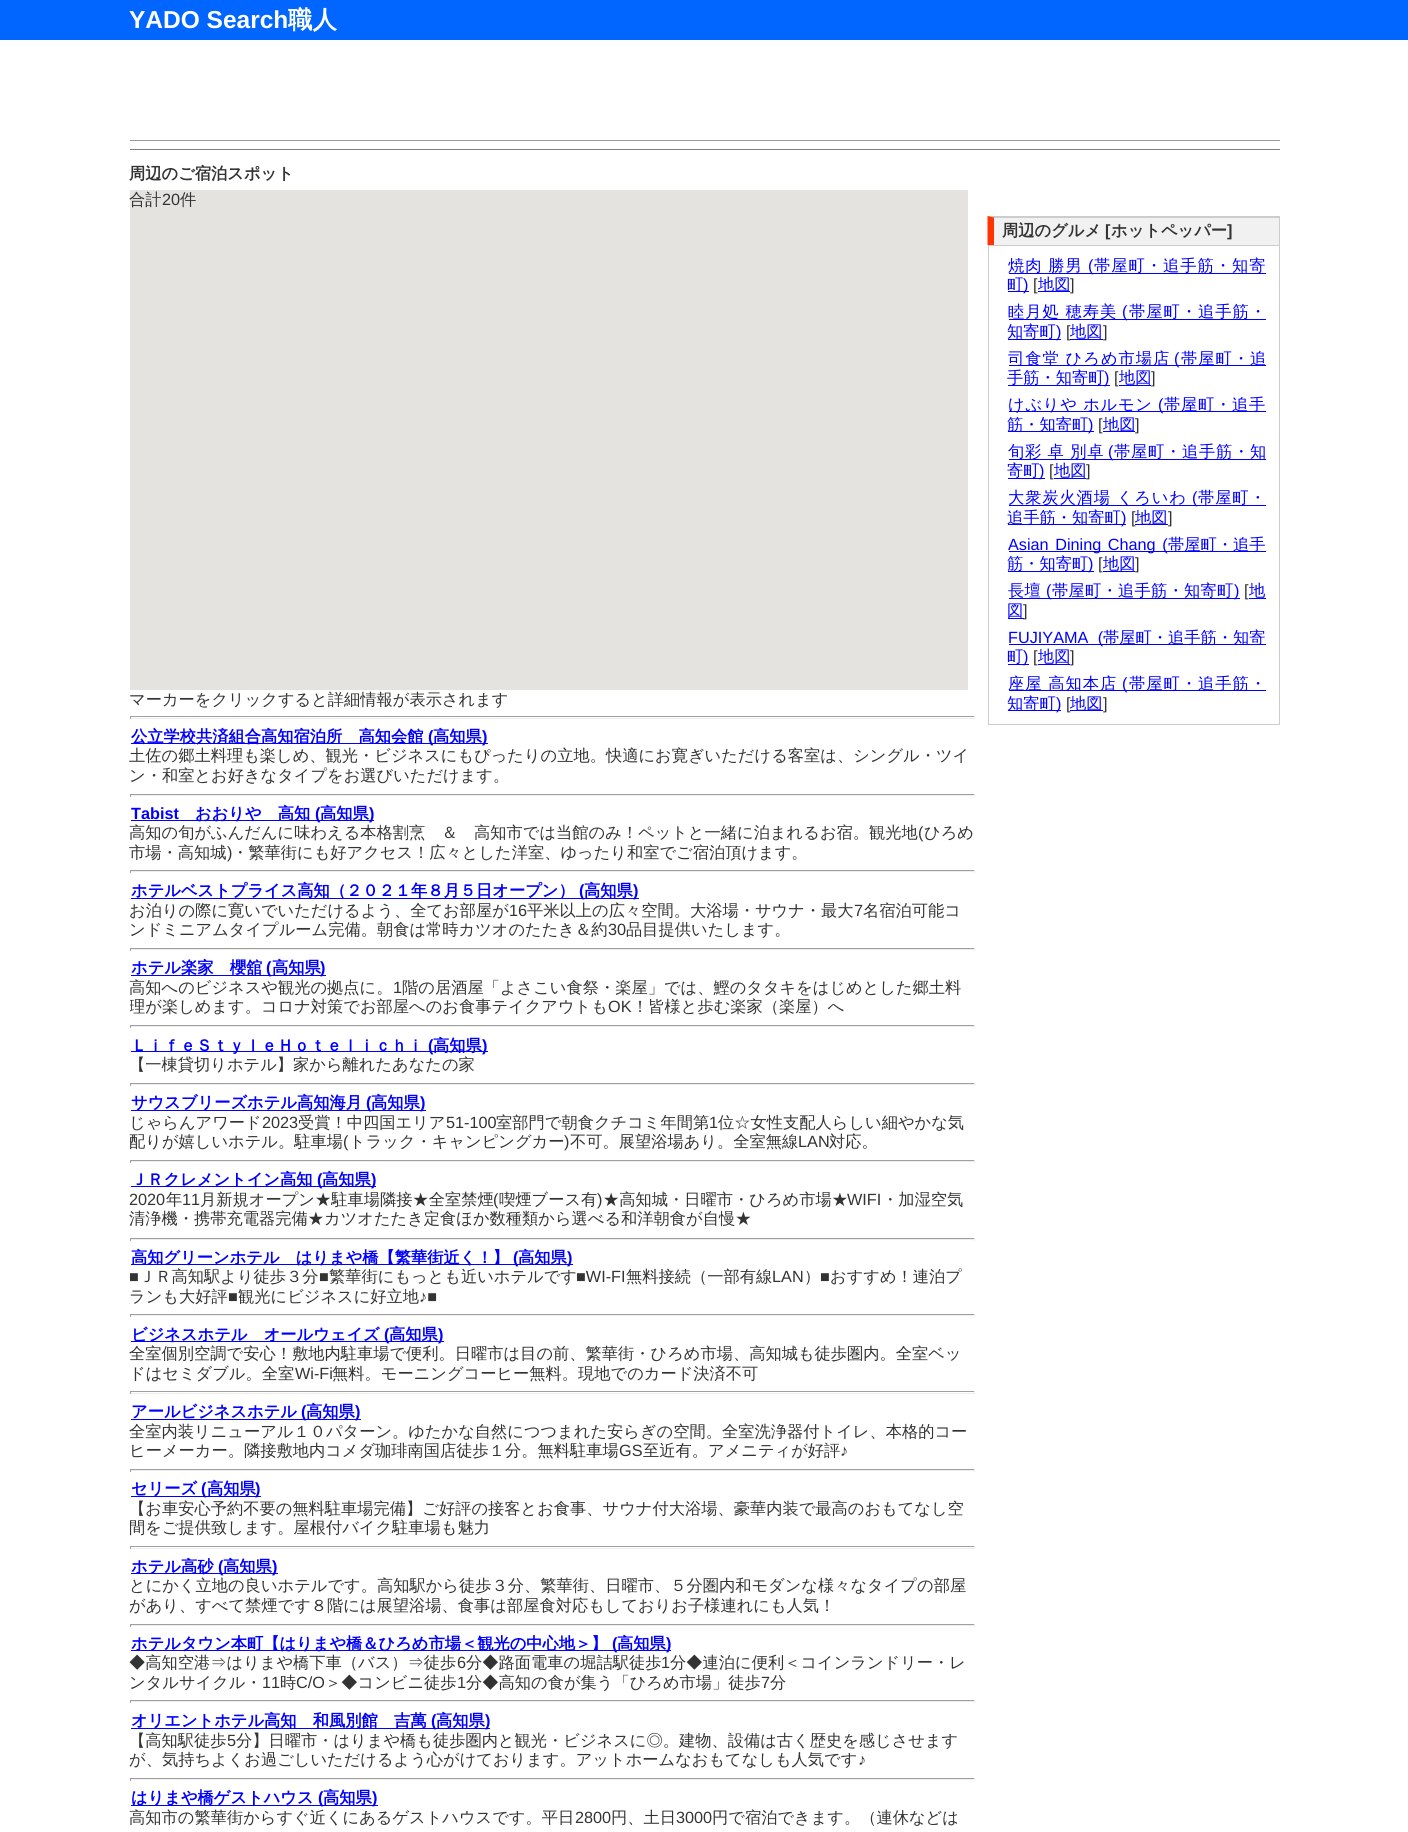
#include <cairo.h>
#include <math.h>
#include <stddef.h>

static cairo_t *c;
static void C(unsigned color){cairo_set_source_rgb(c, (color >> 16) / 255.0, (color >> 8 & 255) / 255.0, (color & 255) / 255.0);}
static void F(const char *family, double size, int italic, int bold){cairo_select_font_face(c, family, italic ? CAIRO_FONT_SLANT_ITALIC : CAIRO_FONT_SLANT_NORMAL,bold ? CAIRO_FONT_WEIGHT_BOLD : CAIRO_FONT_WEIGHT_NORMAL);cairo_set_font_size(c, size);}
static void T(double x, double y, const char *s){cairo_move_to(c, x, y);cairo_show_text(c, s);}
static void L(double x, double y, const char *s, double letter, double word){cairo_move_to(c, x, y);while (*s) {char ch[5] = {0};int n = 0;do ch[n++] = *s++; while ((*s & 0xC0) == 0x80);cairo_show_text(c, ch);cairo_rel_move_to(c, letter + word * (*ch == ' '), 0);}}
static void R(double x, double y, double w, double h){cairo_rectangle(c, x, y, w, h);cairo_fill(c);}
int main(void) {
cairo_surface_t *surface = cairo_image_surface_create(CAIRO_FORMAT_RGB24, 1408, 1832);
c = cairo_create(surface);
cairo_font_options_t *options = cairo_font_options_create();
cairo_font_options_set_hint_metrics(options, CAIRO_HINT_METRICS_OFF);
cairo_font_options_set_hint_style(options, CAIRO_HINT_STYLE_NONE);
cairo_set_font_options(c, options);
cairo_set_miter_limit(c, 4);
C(0xffffff);
cairo_paint(c);
C(0x0066ff);
R(0,0,1408,40);
F("Liberation Sans",24.5,0,1);
C(0xffffff);
T(129,28,"YADO Search");
F("WenQuanYi Zen Hei",24.5,0,1);
T(288,28,"職人");
C(0x999999);
R(130,140,1150,1);
C(0x808080);
R(130,149,1150,1);
F("WenQuanYi Zen Hei",16.25,0,1);
C(0x333333);
T(129,179,"周辺のご宿泊スポット");
C(0xe5e3df);
R(130,190,838,500);
F("WenQuanYi Zen Hei Medium",16.25,0,0);
C(0x333333);
T(129,205,"合計");
F("Liberation Sans",16.25,0,0);
T(162,205,"20");
F("WenQuanYi Zen Hei Medium",16.25,0,0);
T(180,205,"件");
C(0x0000ff);
R(131,743,357,1);
F("WenQuanYi Zen Hei",16.25,0,1);
T(131,742,"公立学校共済組合高知宿泊所　高知会館");
F("Liberation Sans",16.25,0,1);
T(428,742,"(");
F("WenQuanYi Zen Hei",16.25,0,1);
T(433,742,"高知県");
F("Liberation Sans",16.25,0,1);
T(482,742,")");
F("WenQuanYi Zen Hei Medium",16.25,0,0);
C(0x333333);
T(129,761,"土佐の郷土料理も楽しめ、観光・ビジネスにもぴったりの立地。快適にお寛ぎいただける客室は、シングル・ツイ");
T(129,781,"ン・和室とお好きなタイプをお選びいただけます。");
C(0x9f9f9f);
R(130,794,845,1);
C(0xeeeeee);
R(974,794,1,3);
R(130,795,845,1);
C(0x9f9f9f);
R(130,794,1,3);
F("Liberation Sans",16.25,0,1);
C(0x0000ff);
T(131,819,"Tabist");
R(131,820,243,1);
F("WenQuanYi Zen Hei",16.25,0,1);
T(195,819,"おおりや　高知");
F("Liberation Sans",16.25,0,1);
T(315,819,"(");
F("WenQuanYi Zen Hei",16.25,0,1);
T(320,819,"高知県");
F("Liberation Sans",16.25,0,1);
T(369,819,")");
F("WenQuanYi Zen Hei Medium",16.25,0,0);
C(0x333333);
T(129,838,"高知の旬がふんだんに味わえる本格割烹　＆　高知市では当館のみ！ペットと一緒に泊まれるお宿。観光地");
F("Liberation Sans",16.25,0,0);
T(918,838,"(");
F("WenQuanYi Zen Hei Medium",16.25,0,0);
T(924,838,"ひろめ");
T(129,858,"市場・高知城");
F("Liberation Sans",16.25,0,0);
T(227,858,")");
F("WenQuanYi Zen Hei Medium",16.25,0,0);
T(232,858,"・繁華街にも好アクセス！広々とした洋室、ゆったり和室でご宿泊頂けます。");
C(0x9f9f9f);
R(130,870,845,1);
C(0xeeeeee);
R(974,870,1,3);
R(130,871,845,1);
C(0x9f9f9f);
R(130,870,1,3);
C(0x0000ff);
R(131,898,508,1);
F("WenQuanYi Zen Hei",16.25,0,1);
T(131,896,"ホテルベストプライス高知（２０２１年８月５日オープン）");
F("Liberation Sans",16.25,0,1);
T(579,896,"(");
F("WenQuanYi Zen Hei",16.25,0,1);
T(584,896,"高知県");
F("Liberation Sans",16.25,0,1);
T(633,896,")");
F("WenQuanYi Zen Hei Medium",16.25,0,0);
C(0x333333);
T(129,916,"お泊りの際に寛いでいただけるよう、全てお部屋が");
F("Liberation Sans",16.25,0,0);
T(509,916,"16");
F("WenQuanYi Zen Hei Medium",16.25,0,0);
T(527,916,"平米以上の広々空間。大浴場・サウナ・最大");
F("Liberation Sans",16.25,0,0);
T(854,916,"7");
F("WenQuanYi Zen Hei Medium",16.25,0,0);
T(863,916,"名宿泊可能コ");
T(129,935,"ンドミニアムタイプルーム完備。朝食は常時カツオのたたき＆約");
F("Liberation Sans",16.25,0,0);
T(608,935,"30");
F("WenQuanYi Zen Hei Medium",16.25,0,0);
T(626,935,"品目提供いたします。");
C(0x9f9f9f);
R(130,948,845,1);
C(0xeeeeee);
R(974,948,1,3);
R(130,949,845,1);
C(0x9f9f9f);
R(130,948,1,3);
C(0x0000ff);
R(131,975,195,1);
F("WenQuanYi Zen Hei",16.25,0,1);
T(131,973,"ホテル楽家　櫻舘");
F("Liberation Sans",16.25,0,1);
T(266,973,"(");
F("WenQuanYi Zen Hei",16.25,0,1);
T(272,973,"高知県");
F("Liberation Sans",16.25,0,1);
T(320,973,")");
F("WenQuanYi Zen Hei Medium",16.25,0,0);
C(0x333333);
T(129,993,"高知へのビジネスや観光の拠点に。");
F("Liberation Sans",16.25,0,0);
T(393,993,"1");
F("WenQuanYi Zen Hei Medium",16.25,0,0);
T(402,993,"階の居酒屋「よさこい食祭・楽屋」では、鰹のタタキをはじめとした郷土料");
cairo_save(c);
cairo_rectangle(c,130,159,1150,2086);
cairo_clip(c);
T(129,1012,"理が楽しめます。コロナ対策でお部屋へのお食事テイクアウトも");
cairo_restore(c);
F("Liberation Sans",16.25,0,0);
T(608,1012,"OK");
F("WenQuanYi Zen Hei Medium",16.25,0,0);
T(632,1012,"！皆様と歩む楽家（楽屋）へ");
C(0x9f9f9f);
R(130,1025,845,1);
C(0xeeeeee);
R(974,1025,1,3);
R(130,1026,845,1);
C(0x9f9f9f);
R(130,1025,1,3);
C(0x0000ff);
R(131,1051,357,1);
F("WenQuanYi Zen Hei",16.25,0,1);
T(131,1051,"ＬｉｆｅＳｔｙｌｅＨｏｔｅｌｉｃｈｉ");
F("Liberation Sans",16.25,0,1);
T(428,1051,"(");
F("WenQuanYi Zen Hei",16.25,0,1);
T(433,1051,"高知県");
F("Liberation Sans",16.25,0,1);
T(482,1051,")");
F("WenQuanYi Zen Hei Medium",16.25,0,0);
C(0x333333);
T(129,1070,"【一棟貸切りホテル】家から離れたあなたの家");
C(0x9f9f9f);
R(130,1083,845,1);
C(0xeeeeee);
R(974,1083,1,3);
R(130,1084,845,1);
C(0x9f9f9f);
R(130,1083,1,3);
C(0x0000ff);
R(131,1110,295,1);
F("WenQuanYi Zen Hei",16.25,0,1);
T(131,1108,"サウスブリーズホテル高知海月");
F("Liberation Sans",16.25,0,1);
T(366,1108,"(");
F("WenQuanYi Zen Hei",16.25,0,1);
T(371,1108,"高知県");
F("Liberation Sans",16.25,0,1);
T(420,1108,")");
F("WenQuanYi Zen Hei Medium",16.25,0,0);
C(0x333333);
T(129,1128,"じゃらんアワード");
F("Liberation Sans",16.25,0,0);
T(262,1128,"2023");
F("WenQuanYi Zen Hei Medium",16.25,0,0);
T(298,1128,"受賞！中四国エリア");
F("Liberation Sans",16.25,0,0);
T(446,1128,"51-100");
F("WenQuanYi Zen Hei Medium",16.25,0,0);
T(496,1128,"室部門で朝食クチコミ年間第");
F("Liberation Sans",16.25,0,0);
T(709,1128,"1");
F("WenQuanYi Zen Hei Medium",16.25,0,0);
T(718,1128,"位☆女性支配人らしい細やかな気");
T(129,1147,"配りが嬉しいホテル。駐車場");
F("Liberation Sans",16.25,0,0);
T(343,1147,"(");
F("WenQuanYi Zen Hei Medium",16.25,0,0);
T(349,1147,"トラック・キャンピングカー");
F("Liberation Sans",16.25,0,0);
T(564,1147,")");
F("WenQuanYi Zen Hei Medium",16.25,0,0);
T(570,1147,"不可。展望浴場あり。全室無線");
F("Liberation Sans",16.25,0,0);
T(798,1147,"LAN");
F("WenQuanYi Zen Hei Medium",16.25,0,0);
T(829,1147,"対応。");
C(0x9f9f9f);
R(130,1160,845,1);
C(0xeeeeee);
R(974,1160,1,3);
R(130,1161,845,1);
C(0x9f9f9f);
R(130,1160,1,3);
C(0x0000ff);
R(131,1186,245,1);
F("WenQuanYi Zen Hei",16.25,0,1);
T(131,1185,"ＪＲクレメントイン高知");
F("Liberation Sans",16.25,0,1);
T(317,1185,"(");
F("WenQuanYi Zen Hei",16.25,0,1);
T(322,1185,"高知県");
F("Liberation Sans",16.25,0,1);
T(371,1185,")");
F("Liberation Sans",16.25,0,0);
C(0x333333);
T(129,1205,"2020");
F("WenQuanYi Zen Hei Medium",16.25,0,0);
T(166,1205,"年");
F("Liberation Sans",16.25,0,0);
T(182,1205,"11");
F("WenQuanYi Zen Hei Medium",16.25,0,0);
T(200,1205,"月新規オープン★駐車場隣接★全室禁煙");
F("Liberation Sans",16.25,0,0);
T(493,1205,"(");
F("WenQuanYi Zen Hei Medium",16.25,0,0);
T(499,1205,"喫煙ブース有");
F("Liberation Sans",16.25,0,0);
T(597,1205,")");
F("WenQuanYi Zen Hei Medium",16.25,0,0);
T(603,1205,"★高知城・日曜市・ひろめ市場★");
F("Liberation Sans",16.25,0,0);
T(847,1205,"WIFI");
F("WenQuanYi Zen Hei Medium",16.25,0,0);
T(882,1205,"・加湿空気");
T(129,1224,"清浄機・携帯充電器完備★カツオたたき定食ほか数種類から選べる和洋朝食が自慢★");
C(0x9f9f9f);
R(130,1238,845,1);
C(0xeeeeee);
R(974,1238,1,3);
R(130,1239,845,1);
C(0x9f9f9f);
R(130,1238,1,3);
C(0x0000ff);
R(131,1264,442,1);
F("WenQuanYi Zen Hei",16.25,0,1);
T(131,1263,"高知グリーンホテル　はりまや橋【繁華街近く！】");
F("Liberation Sans",16.25,0,1);
T(513,1263,"(");
F("WenQuanYi Zen Hei",16.25,0,1);
T(518,1263,"高知県");
F("Liberation Sans",16.25,0,1);
T(567,1263,")");
F("Liberation Sans",16.25,0,0);
C(0x333333);
T(129,1282,"■");
F("WenQuanYi Zen Hei Medium",16.25,0,0);
T(139,1282,"ＪＲ高知駅より徒歩３分");
F("Liberation Sans",16.25,0,0);
T(319,1282,"■");
F("WenQuanYi Zen Hei Medium",16.25,0,0);
T(329,1282,"繁華街にもっとも近いホテルです");
F("Liberation Sans",16.25,0,0);
T(576,1282,"■WI-FI");
F("WenQuanYi Zen Hei Medium",16.25,0,0);
T(626,1282,"無料接続（一部有線");
F("Liberation Sans",16.25,0,0);
T(772,1282,"LAN");
F("WenQuanYi Zen Hei Medium",16.25,0,0);
T(804,1282,"）");
F("Liberation Sans",16.25,0,0);
T(820,1282,"■");
F("WenQuanYi Zen Hei Medium",16.25,0,0);
T(830,1282,"おすすめ！連泊プ");
T(129,1302,"ランも大好評");
F("Liberation Sans",16.25,0,0);
T(228,1302,"■");
F("WenQuanYi Zen Hei Medium",16.25,0,0);
T(238,1302,"観光にビジネスに好立地");
F("Liberation Sans",16.25,0,0);
T(419,1302,"♪■");
C(0x9f9f9f);
R(130,1314,845,1);
C(0xeeeeee);
R(974,1314,1,3);
R(130,1315,845,1);
C(0x9f9f9f);
R(130,1314,1,3);
C(0x0000ff);
R(131,1341,313,1);
F("WenQuanYi Zen Hei",16.25,0,1);
T(131,1340,"ビジネスホテル　オールウェイズ");
F("Liberation Sans",16.25,0,1);
T(384,1340,"(");
F("WenQuanYi Zen Hei",16.25,0,1);
T(389,1340,"高知県");
F("Liberation Sans",16.25,0,1);
T(438,1340,")");
F("WenQuanYi Zen Hei Medium",16.25,0,0);
C(0x333333);
T(129,1359,"全室個別空調で安心！敷地内駐車場で便利。日曜市は目の前、繁華街・ひろめ市場、高知城も徒歩圏内。全室ベッ");
T(129,1379,"ドはセミダブル。全室");
F("Liberation Sans",16.25,0,0);
T(295,1379,"Wi-Fi");
F("WenQuanYi Zen Hei Medium",16.25,0,0);
T(332,1379,"無料。モーニングコーヒー無料。現地でのカード決済不可");
C(0x9f9f9f);
R(130,1391,845,1);
C(0xeeeeee);
R(974,1391,1,3);
R(130,1393,845,1);
C(0x9f9f9f);
R(130,1391,1,3);
C(0x0000ff);
R(131,1419,230,1);
F("WenQuanYi Zen Hei",16.25,0,1);
T(131,1417,"アールビジネスホテル");
F("Liberation Sans",16.25,0,1);
T(301,1417,"(");
F("WenQuanYi Zen Hei",16.25,0,1);
T(306,1417,"高知県");
F("Liberation Sans",16.25,0,1);
T(355,1417,")");
F("WenQuanYi Zen Hei Medium",16.25,0,0);
C(0x333333);
T(129,1437,"全室内装リニューアル１０パターン。ゆたかな自然につつまれた安らぎの空間。全室洗浄器付トイレ、本格的コー");
T(129,1456,"ヒーメーカー。隣接敷地内コメダ珈琲南国店徒歩１分。無料駐車場");
F("Liberation Sans",16.25,0,0);
T(619,1456,"GS");
F("WenQuanYi Zen Hei Medium",16.25,0,0);
T(643,1456,"至近有。アメニティが好評");
F("Liberation Sans",16.25,0,0);
T(840,1456,"♪");
C(0x9f9f9f);
R(130,1469,845,1);
C(0xeeeeee);
R(974,1469,1,3);
R(130,1470,845,1);
C(0x9f9f9f);
R(130,1469,1,3);
C(0x0000ff);
R(131,1496,130,1);
F("WenQuanYi Zen Hei",16.25,0,1);
T(131,1494,"セリーズ");
F("Liberation Sans",16.25,0,1);
T(201,1494,"(");
F("WenQuanYi Zen Hei",16.25,0,1);
T(207,1494,"高知県");
F("Liberation Sans",16.25,0,1);
T(255,1494,")");
F("WenQuanYi Zen Hei Medium",16.25,0,0);
C(0x333333);
T(129,1514,"【お車安心予約不要の無料駐車場完備】ご好評の接客とお食事、サウナ付大浴場、豪華内装で最高のおもてなし空");
T(129,1533,"間をご提供致します。屋根付バイク駐車場も魅力");
C(0x9f9f9f);
R(130,1546,845,1);
C(0xeeeeee);
R(974,1546,1,3);
R(130,1548,845,1);
C(0x9f9f9f);
R(130,1546,1,3);
C(0x0000ff);
R(131,1573,147,1);
F("WenQuanYi Zen Hei",16.25,0,1);
T(131,1572,"ホテル高砂");
F("Liberation Sans",16.25,0,1);
T(218,1572,"(");
F("WenQuanYi Zen Hei",16.25,0,1);
T(223,1572,"高知県");
F("Liberation Sans",16.25,0,1);
T(272,1572,")");
F("WenQuanYi Zen Hei Medium",16.25,0,0);
C(0x333333);
T(129,1591,"とにかく立地の良いホテルです。高知駅から徒歩３分、繁華街、日曜市、５分圏内和モダンな様々なタイプの部屋");
T(129,1611,"があり、すべて禁煙です８階には展望浴場、食事は部屋食対応もしておりお子様連れにも人気！");
C(0x9f9f9f);
R(130,1624,845,1);
C(0xeeeeee);
R(974,1624,1,3);
R(130,1625,845,1);
C(0x9f9f9f);
R(130,1624,1,3);
C(0x0000ff);
R(131,1650,540,1);
F("WenQuanYi Zen Hei",16.25,0,1);
T(131,1649,"ホテルタウン本町【はりまや橋＆ひろめ市場＜観光の中心地＞】");
F("Liberation Sans",16.25,0,1);
T(612,1649,"(");
F("WenQuanYi Zen Hei",16.25,0,1);
T(617,1649,"高知県");
F("Liberation Sans",16.25,0,1);
T(666,1649,")");
F("WenQuanYi Zen Hei Medium",16.25,0,0);
C(0x333333);
T(129,1668,"◆高知空港⇒はりまや橋下車（バス）⇒徒歩");
F("Liberation Sans",16.25,0,0);
T(457,1668,"6");
F("WenQuanYi Zen Hei Medium",16.25,0,0);
T(466,1668,"分◆路面電車の堀詰駅徒歩");
F("Liberation Sans",16.25,0,0);
T(661,1668,"1");
F("WenQuanYi Zen Hei Medium",16.25,0,0);
T(670,1668,"分◆連泊に便利＜コインランドリー・レ");
T(129,1688,"ンタルサイクル・");
F("Liberation Sans",16.25,0,0);
T(262,1688,"11");
F("WenQuanYi Zen Hei Medium",16.25,0,0);
T(280,1688,"時");
F("Liberation Sans",16.25,0,0);
T(296,1688,"C/O");
F("WenQuanYi Zen Hei Medium",16.25,0,0);
T(325,1688,"＞◆コンビニ徒歩");
F("Liberation Sans",16.25,0,0);
T(457,1688,"1");
F("WenQuanYi Zen Hei Medium",16.25,0,0);
T(466,1688,"分◆高知の食が集う「ひろめ市場」徒歩");
F("Liberation Sans",16.25,0,0);
T(761,1688,"7");
F("WenQuanYi Zen Hei Medium",16.25,0,0);
T(770,1688,"分");
C(0x9f9f9f);
R(130,1700,845,1);
C(0xeeeeee);
R(974,1700,1,3);
R(130,1701,845,1);
C(0x9f9f9f);
R(130,1700,1,3);
C(0x0000ff);
R(131,1728,359,1);
F("WenQuanYi Zen Hei",16.25,0,1);
T(131,1726,"オリエントホテル高知　和風別館　吉萬");
F("Liberation Sans",16.25,0,1);
T(431,1726,"(");
F("WenQuanYi Zen Hei",16.25,0,1);
T(436,1726,"高知県");
F("Liberation Sans",16.25,0,1);
T(485,1726,")");
F("WenQuanYi Zen Hei Medium",16.25,0,0);
C(0x333333);
T(129,1746,"【高知駅徒歩");
F("Liberation Sans",16.25,0,0);
T(227,1746,"5");
F("WenQuanYi Zen Hei Medium",16.25,0,0);
T(236,1746,"分】日曜市・はりまや橋も徒歩圏内と観光・ビジネスに◎。建物、設備は古く歴史を感じさせます");
T(129,1765,"が、気持ちよくお過ごしいただけるよう心がけております。アットホームなおもてなしも人気です");
F("Liberation Sans",16.25,0,0);
T(858,1765,"♪");
C(0x9f9f9f);
R(130,1778,845,1);
C(0xeeeeee);
R(974,1778,1,3);
R(130,1779,845,1);
C(0x9f9f9f);
R(130,1778,1,3);
C(0x0000ff);
R(131,1805,247,1);
F("WenQuanYi Zen Hei",16.25,0,1);
T(131,1803,"はりまや橋ゲストハウス");
F("Liberation Sans",16.25,0,1);
T(318,1803,"(");
F("WenQuanYi Zen Hei",16.25,0,1);
T(323,1803,"高知県");
F("Liberation Sans",16.25,0,1);
T(372,1803,")");
F("WenQuanYi Zen Hei Medium",16.25,0,0);
C(0x333333);
T(129,1823,"高知市の繁華街からすぐ近くにあるゲストハウスです。平日");
F("Liberation Sans",16.25,0,0);
T(575,1823,"2800");
F("WenQuanYi Zen Hei Medium",16.25,0,0);
T(611,1823,"円、土日");
F("Liberation Sans",16.25,0,0);
T(676,1823,"3000");
F("WenQuanYi Zen Hei Medium",16.25,0,0);
T(712,1823,"円で宿泊できます。（連休などは");
T(129,705,"マーカーをクリックすると詳細情報が表示されます");
C(0x9f9f9f);
R(130,716,845,1);
C(0xeeeeee);
R(974,716,1,3);
R(130,718,845,1);
C(0x9f9f9f);
R(130,716,1,3);
C(0xf1f1f1);
R(988,216,291,29);
C(0xcccccc);
cairo_new_path(c);
cairo_move_to(c,988,216);
cairo_line_to(c,1280,216);
cairo_line_to(c,1279,218);
cairo_line_to(c,994,218);
cairo_close_path(c);
cairo_fill(c);
R(1279,216,1,29);
C(0xff3300);
cairo_new_path(c);
cairo_move_to(c,987.5,245);
cairo_line_to(c,987.5,216);
cairo_line_to(c,994,217.5);
cairo_line_to(c,994,245);
cairo_close_path(c);
cairo_fill(c);
F("WenQuanYi Zen Hei",16.25,0,1);
C(0x333333);
T(1002,236,"周辺のグルメ");
F("Liberation Sans",16.25,0,1);
T(1105,236,"[");
F("WenQuanYi Zen Hei",16.25,0,1);
T(1111,236,"ホットペッパー");
F("Liberation Sans",16.25,0,1);
T(1227,236,"]");
cairo_rectangle(c,988.5,245.5,291,479);
C(0xcccccc);
cairo_set_line_width(c,1);
cairo_stroke(c);
C(0x0000ff);
R(1009,273,257,1);
F("WenQuanYi Zen Hei Medium",16.25,0,0);
L(1008,271,"焼肉 勝男",1,0);
F("Liberation Sans",16.25,0,0);
L(1088,271,"(",1,0);
F("WenQuanYi Zen Hei Medium",16.25,0,0);
L(1094,271,"帯屋町・追手筋・知寄",1,0);
R(1008,291,21,1);
T(1007,290,"町");
F("Liberation Sans",16.25,0,0);
T(1023,290,")");
C(0x333333);
T(1033,290,"[");
C(0x0000ff);
R(1038,291,32,1);
F("WenQuanYi Zen Hei Medium",16.25,0,0);
T(1038,290,"地図");
F("Liberation Sans",16.25,0,0);
C(0x333333);
T(1070,290,"]");
C(0x0000ff);
R(1009,319,257,1);
F("WenQuanYi Zen Hei Medium",16.25,0,0);
L(1008,317,"睦月処 穂寿美",1,0);
F("Liberation Sans",16.25,0,0);
L(1122,317,"(",1,0);
F("WenQuanYi Zen Hei Medium",16.25,0,0);
L(1129,317,"帯屋町・追手筋・",1,0);
R(1008,339,53,1);
T(1007,337,"知寄町");
F("Liberation Sans",16.25,0,0);
T(1056,337,")");
C(0x333333);
T(1066,337,"[");
F("WenQuanYi Zen Hei Medium",16.25,0,0);
C(0x0000ff);
T(1070,337,"地図");
R(1070,339,33,1);
F("Liberation Sans",16.25,0,0);
C(0x333333);
T(1103,337,"]");
C(0x0000ff);
R(1009,365,257,1);
F("WenQuanYi Zen Hei Medium",16.25,0,0);
L(1008,364,"司食堂 ひろめ市場店",1,0);
F("Liberation Sans",16.25,0,0);
L(1174,364,"(",1,0);
F("WenQuanYi Zen Hei Medium",16.25,0,0);
L(1181,364,"帯屋町・追",1,0);
R(1008,385,102,1);
T(1007,383,"手筋・知寄町");
F("Liberation Sans",16.25,0,0);
T(1104,383,")");
C(0x333333);
T(1114,383,"[");
F("WenQuanYi Zen Hei Medium",16.25,0,0);
C(0x0000ff);
T(1119,383,"地図");
R(1119,385,32,1);
F("Liberation Sans",16.25,0,0);
C(0x333333);
T(1151,383,"]");
C(0x0000ff);
R(1009,411,257,1);
F("WenQuanYi Zen Hei Medium",16.25,0,0);
L(1008,410,"けぶりや ホルモン",.75,0);
F("Liberation Sans",16.25,0,0);
L(1158,410,"(",.75,0);
F("WenQuanYi Zen Hei Medium",16.25,0,0);
L(1164,410,"帯屋町・追手",.75,0);
R(1008,431,86,1);
T(1007,430,"筋・知寄町");
F("Liberation Sans",16.25,0,0);
T(1088,430,")");
C(0x333333);
T(1098,430,"[");
C(0x0000ff);
R(1103,431,32,1);
F("WenQuanYi Zen Hei Medium",16.25,0,0);
T(1103,430,"地図");
F("Liberation Sans",16.25,0,0);
C(0x333333);
T(1135,430,"]");
C(0x0000ff);
R(1009,459,257,1);
F("WenQuanYi Zen Hei Medium",16.25,0,0);
L(1008,457,"旬彩 卓 別卓",.75,0);
F("Liberation Sans",16.25,0,0);
L(1108,457,"(",.75,0);
F("WenQuanYi Zen Hei Medium",16.25,0,0);
L(1114,457,"帯屋町・追手筋・知",.75,0);
R(1008,478,37,1);
T(1007,476,"寄町");
F("Liberation Sans",16.25,0,0);
T(1039,476,")");
C(0x333333);
T(1049,476,"[");
F("WenQuanYi Zen Hei Medium",16.25,0,0);
C(0x0000ff);
T(1054,476,"地図");
R(1054,478,32,1);
F("Liberation Sans",16.25,0,0);
C(0x333333);
T(1086,476,"]");
C(0x0000ff);
R(1009,505,257,1);
F("WenQuanYi Zen Hei Medium",16.25,0,0);
L(1008,503,"大衆炭火酒場 くろいわ",.9,0);
F("Liberation Sans",16.25,0,0);
L(1192,503,"(",.9,0);
F("WenQuanYi Zen Hei Medium",16.25,0,0);
L(1198,503,"帯屋町・",.9,0);
R(1008,524,118,1);
T(1007,523,"追手筋・知寄町");
F("Liberation Sans",16.25,0,0);
T(1121,523,")");
C(0x333333);
T(1131,523,"[");
C(0x0000ff);
R(1135,524,33,1);
F("WenQuanYi Zen Hei Medium",16.25,0,0);
T(1135,523,"地図");
F("Liberation Sans",16.25,0,0);
C(0x333333);
T(1168,523,"]");
C(0x0000ff);
R(1009,551,257,1);
L(1008,550,"Asian Dining Chang (",0,2);
F("WenQuanYi Zen Hei Medium",16.25,0,0);
T(1168,550,"帯屋町・追手");
R(1008,571,86,1);
T(1007,569,"筋・知寄町");
F("Liberation Sans",16.25,0,0);
T(1088,569,")");
C(0x333333);
T(1098,569,"[");
F("WenQuanYi Zen Hei Medium",16.25,0,0);
C(0x0000ff);
T(1103,569,"地図");
R(1103,571,32,1);
F("Liberation Sans",16.25,0,0);
C(0x333333);
T(1135,569,"]");
F("WenQuanYi Zen Hei Medium",16.25,0,0);
C(0x0000ff);
L(1008,596,"長壇",.25,0);
R(1009,598,231,1);
F("Liberation Sans",16.25,0,0);
L(1046,596,"(",.25,0);
F("WenQuanYi Zen Hei Medium",16.25,0,0);
L(1052,596,"帯屋町・追手筋・知寄町",.25,0);
F("Liberation Sans",16.25,0,0);
L(1234,596,")",.25,0);
C(0x333333);
T(1244,596,"[");
F("WenQuanYi Zen Hei Medium",16.25,0,0);
C(0x0000ff);
T(1249,596,"地");
R(1249,598,17,1);
T(1007,616,"図");
R(1008,618,16,1);
F("Liberation Sans",16.25,0,0);
C(0x333333);
T(1023,616,"]");
C(0x0000ff);
R(1009,644,257,1);
L(1008,643,"FUJIYAMA (",0,5);
F("WenQuanYi Zen Hei Medium",16.25,0,0);
T(1103,643,"帯屋町・追手筋・知寄");
R(1008,664,21,1);
T(1007,662,"町");
F("Liberation Sans",16.25,0,0);
T(1023,662,")");
C(0x333333);
T(1033,662,"[");
F("WenQuanYi Zen Hei Medium",16.25,0,0);
C(0x0000ff);
T(1038,662,"地図");
R(1038,664,32,1);
F("Liberation Sans",16.25,0,0);
C(0x333333);
T(1070,662,"]");
C(0x0000ff);
R(1009,690,257,1);
F("WenQuanYi Zen Hei Medium",16.25,0,0);
L(1008,689,"座屋 高知本店",1,0);
F("Liberation Sans",16.25,0,0);
L(1122,689,"(",1,0);
F("WenQuanYi Zen Hei Medium",16.25,0,0);
L(1129,689,"帯屋町・追手筋・",1,0);
R(1008,710,53,1);
T(1007,709,"知寄町");
F("Liberation Sans",16.25,0,0);
T(1056,709,")");
C(0x333333);
T(1066,709,"[");
C(0x0000ff);
R(1070,710,33,1);
F("WenQuanYi Zen Hei Medium",16.25,0,0);
T(1070,709,"地図");
F("Liberation Sans",16.25,0,0);
C(0x333333);
T(1103,709,"]");
cairo_surface_write_to_png(surface, "o.png");
cairo_font_options_destroy(options);
cairo_destroy(c);
cairo_surface_destroy(surface);
return 0;
}
